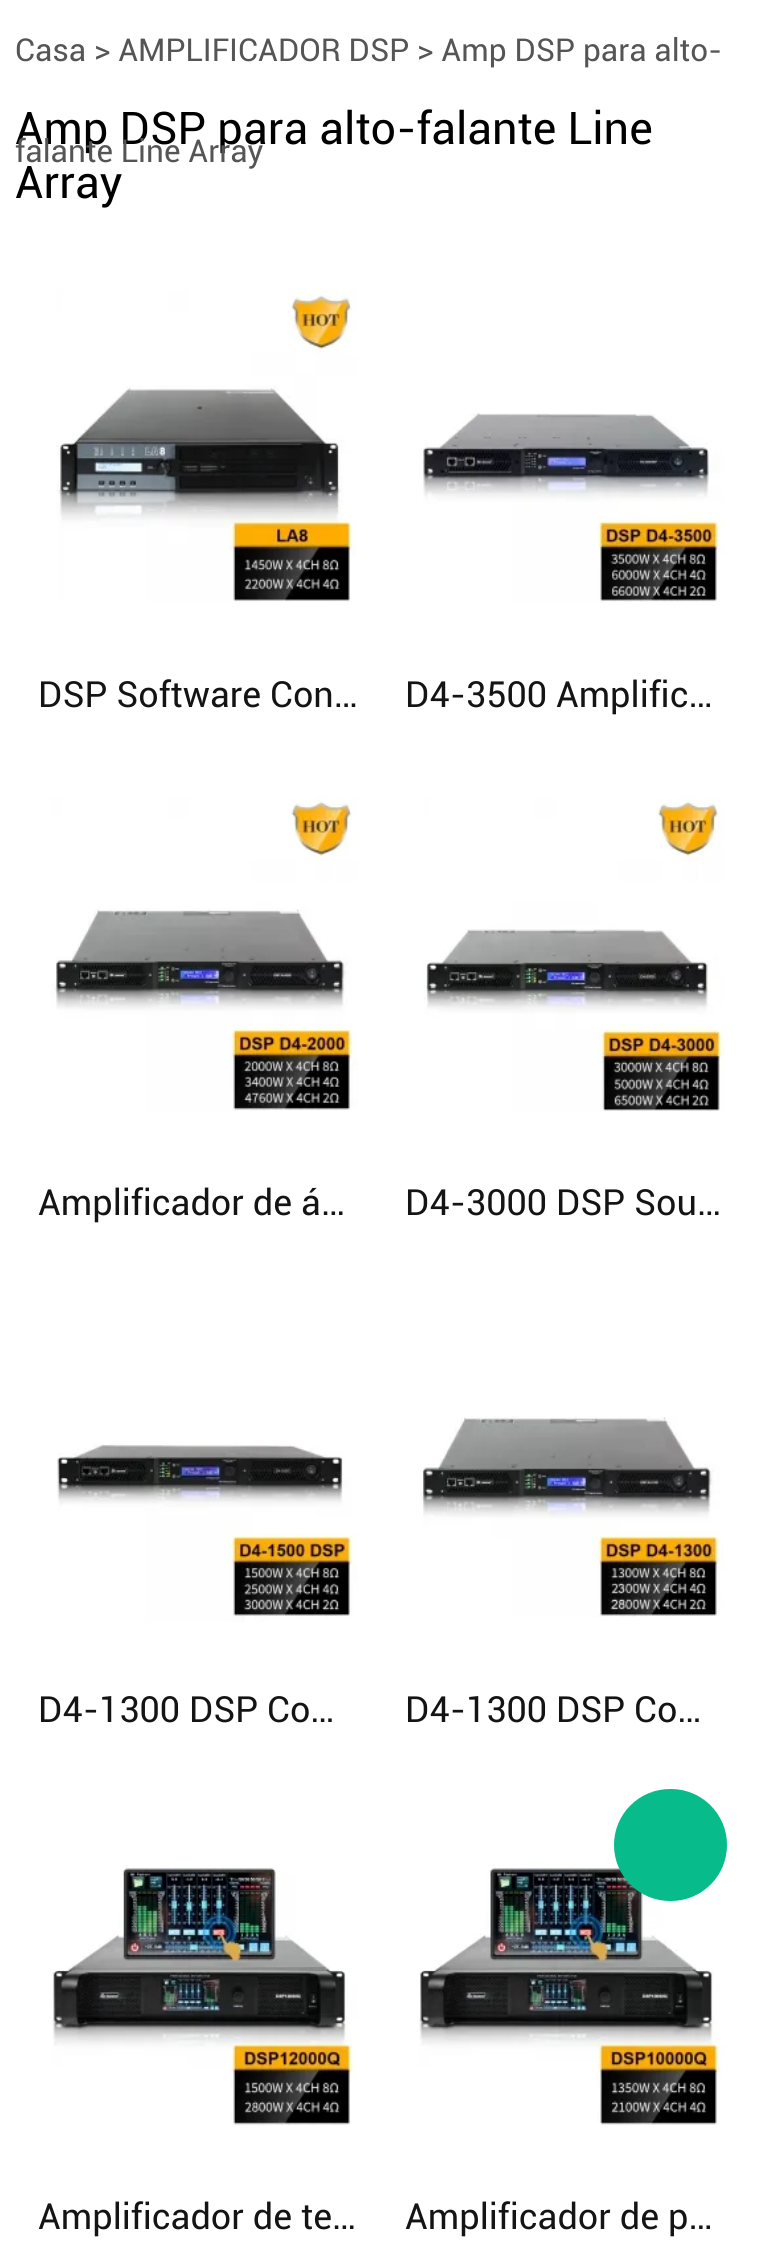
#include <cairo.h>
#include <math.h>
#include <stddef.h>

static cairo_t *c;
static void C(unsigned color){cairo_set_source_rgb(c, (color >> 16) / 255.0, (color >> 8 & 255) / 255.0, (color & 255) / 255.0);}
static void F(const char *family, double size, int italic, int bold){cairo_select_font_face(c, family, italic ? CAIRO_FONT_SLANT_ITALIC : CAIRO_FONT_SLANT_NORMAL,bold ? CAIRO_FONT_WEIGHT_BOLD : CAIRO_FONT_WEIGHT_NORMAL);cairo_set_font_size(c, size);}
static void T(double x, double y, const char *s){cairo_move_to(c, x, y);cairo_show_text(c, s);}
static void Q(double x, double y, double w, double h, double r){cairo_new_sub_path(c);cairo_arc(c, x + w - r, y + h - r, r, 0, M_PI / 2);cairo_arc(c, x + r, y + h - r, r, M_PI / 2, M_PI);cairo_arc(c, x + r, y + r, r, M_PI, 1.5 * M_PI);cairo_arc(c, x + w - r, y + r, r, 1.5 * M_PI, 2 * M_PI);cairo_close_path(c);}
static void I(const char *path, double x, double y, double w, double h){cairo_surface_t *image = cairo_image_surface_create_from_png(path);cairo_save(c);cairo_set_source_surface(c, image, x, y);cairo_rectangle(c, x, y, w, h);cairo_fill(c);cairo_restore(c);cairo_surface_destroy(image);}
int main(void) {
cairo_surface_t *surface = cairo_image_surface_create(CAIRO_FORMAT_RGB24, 763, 2267);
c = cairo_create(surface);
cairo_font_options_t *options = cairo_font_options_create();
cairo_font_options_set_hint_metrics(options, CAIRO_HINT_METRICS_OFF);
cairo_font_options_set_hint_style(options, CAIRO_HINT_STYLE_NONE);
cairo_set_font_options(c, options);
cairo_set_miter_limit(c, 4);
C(0xffffff);
cairo_paint(c);
F("Roboto",31.5,0,0);
C(0x555555);
T(15,61,"Casa > AMPLIFICADOR DSP > Amp DSP para alto-");
F("Roboto",45,0,0);
C(0x000000);
T(15,144,"Amp DSP para alto-falante Line");
F("Roboto",31.5,0,0);
C(0x555555);
T(15,162,"falante Line Array");
F("Roboto",45,0,0);
C(0x000000);
T(15,198,"Array");
I("1.png",56,290,301,312);
F("Roboto",36,0,0);
C(0x141414);
T(38,707,"DSP Software Con…");
I("2.png",423,413,301,189);
T(405,707,"D4-3500 Amplific…");
I("3.png",51,797,307,314);
T(38,1215,"Amplificador de á…");
I("4.png",423,797,301,314);
T(405,1215,"D4-3000 DSP Sou…");
I("5.png",57,1443,301,179);
T(38,1722,"D4-1300 DSP Co…");
I("6.png",420,1416,305,201);
T(405,1722,"D4-1300 DSP Co…");
I("7.png",52,1865,306,261);
T(38,2229,"Amplificador de te…");
I("8.png",419,1864,305,261);
T(405,2229,"Amplificador de p…");
C(0x07bb8a);
Q(614,1789,113,112,56);
cairo_fill(c);
cairo_surface_write_to_png(surface, "o.png");
cairo_font_options_destroy(options);
cairo_destroy(c);
cairo_surface_destroy(surface);
return 0;
}
